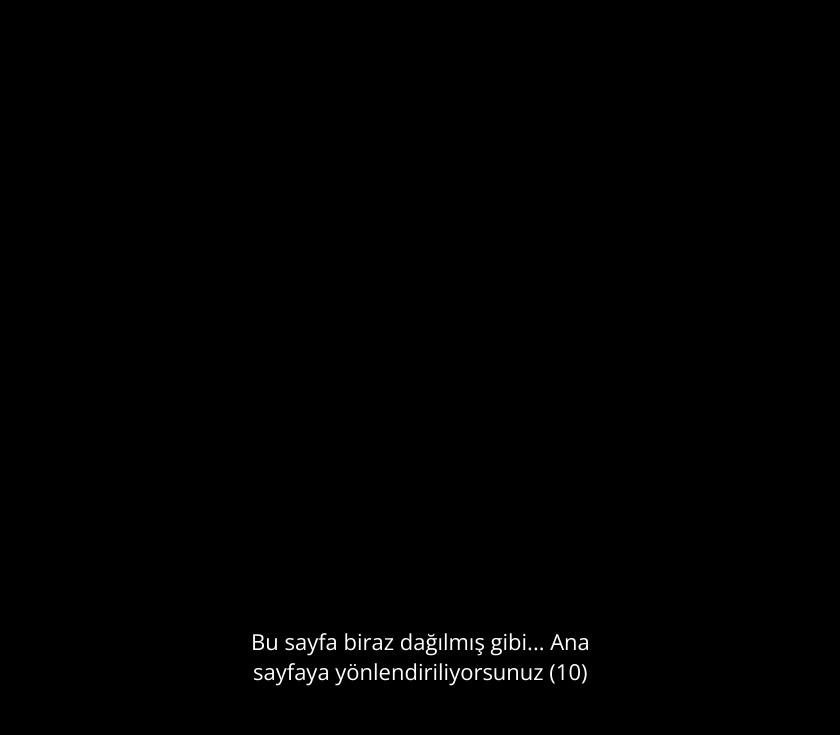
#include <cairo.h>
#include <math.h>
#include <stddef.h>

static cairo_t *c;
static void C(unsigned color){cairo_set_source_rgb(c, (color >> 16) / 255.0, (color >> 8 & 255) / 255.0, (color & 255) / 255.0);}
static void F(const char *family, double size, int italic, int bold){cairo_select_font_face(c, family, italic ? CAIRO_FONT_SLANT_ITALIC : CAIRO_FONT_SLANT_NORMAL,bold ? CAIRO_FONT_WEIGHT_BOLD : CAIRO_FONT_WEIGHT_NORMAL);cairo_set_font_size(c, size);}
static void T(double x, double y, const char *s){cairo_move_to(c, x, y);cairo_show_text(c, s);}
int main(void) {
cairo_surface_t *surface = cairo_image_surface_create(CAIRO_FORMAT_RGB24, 840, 735);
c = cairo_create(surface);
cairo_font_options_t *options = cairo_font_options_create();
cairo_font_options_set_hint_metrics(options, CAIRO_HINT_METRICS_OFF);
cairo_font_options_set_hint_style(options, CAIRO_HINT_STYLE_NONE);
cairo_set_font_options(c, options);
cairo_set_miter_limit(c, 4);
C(0x000000);
cairo_paint(c);
F("Open Sans",22,0,0);
C(0xffffff);
T(251,650,"Bu sayfa biraz dağılmış gibi... Ana");
T(253,680,"sayfaya yönlendiriliyorsunuz (10)");
cairo_surface_write_to_png(surface, "o.png");
cairo_font_options_destroy(options);
cairo_destroy(c);
cairo_surface_destroy(surface);
return 0;
}
